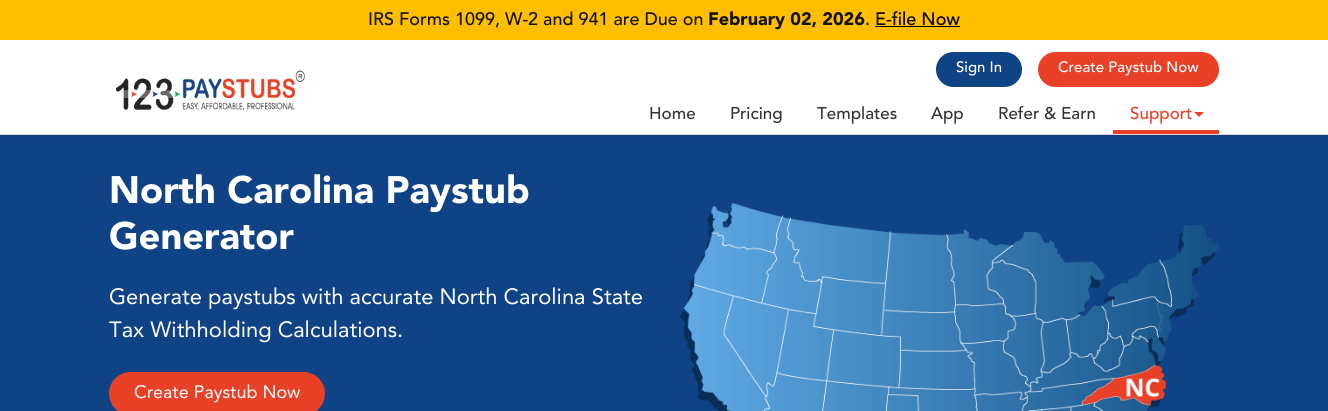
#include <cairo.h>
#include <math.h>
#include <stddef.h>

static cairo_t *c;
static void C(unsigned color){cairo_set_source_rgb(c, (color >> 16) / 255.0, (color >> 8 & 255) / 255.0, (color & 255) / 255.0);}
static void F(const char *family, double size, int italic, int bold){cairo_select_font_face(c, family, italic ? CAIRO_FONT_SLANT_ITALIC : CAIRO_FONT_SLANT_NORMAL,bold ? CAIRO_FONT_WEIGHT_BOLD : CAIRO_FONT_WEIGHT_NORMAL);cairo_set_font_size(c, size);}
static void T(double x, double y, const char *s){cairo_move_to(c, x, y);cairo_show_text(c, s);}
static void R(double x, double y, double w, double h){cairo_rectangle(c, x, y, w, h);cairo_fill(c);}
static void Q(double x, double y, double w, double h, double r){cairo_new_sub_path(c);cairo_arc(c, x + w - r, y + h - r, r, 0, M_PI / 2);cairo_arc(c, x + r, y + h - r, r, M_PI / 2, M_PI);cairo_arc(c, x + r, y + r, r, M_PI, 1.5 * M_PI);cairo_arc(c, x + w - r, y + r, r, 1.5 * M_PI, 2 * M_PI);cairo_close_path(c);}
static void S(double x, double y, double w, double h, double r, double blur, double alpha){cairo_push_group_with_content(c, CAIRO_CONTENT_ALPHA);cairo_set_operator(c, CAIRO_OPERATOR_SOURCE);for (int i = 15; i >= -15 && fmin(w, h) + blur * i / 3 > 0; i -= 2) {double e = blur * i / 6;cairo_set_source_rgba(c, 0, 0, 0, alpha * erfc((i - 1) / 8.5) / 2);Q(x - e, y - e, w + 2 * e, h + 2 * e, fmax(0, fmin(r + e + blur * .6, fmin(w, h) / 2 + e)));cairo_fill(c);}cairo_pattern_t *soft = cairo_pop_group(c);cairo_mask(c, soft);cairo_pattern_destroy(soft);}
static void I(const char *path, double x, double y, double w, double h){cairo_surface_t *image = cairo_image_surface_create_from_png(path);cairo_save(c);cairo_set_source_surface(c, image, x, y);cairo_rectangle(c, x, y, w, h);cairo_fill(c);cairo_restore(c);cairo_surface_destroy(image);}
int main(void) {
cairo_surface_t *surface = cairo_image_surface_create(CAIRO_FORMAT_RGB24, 1328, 411);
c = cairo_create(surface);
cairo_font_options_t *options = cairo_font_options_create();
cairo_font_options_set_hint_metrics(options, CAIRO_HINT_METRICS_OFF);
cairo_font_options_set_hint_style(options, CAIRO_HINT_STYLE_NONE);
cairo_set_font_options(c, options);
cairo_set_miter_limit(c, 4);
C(0xffffff);
cairo_paint(c);
C(0x104385);
R(0,135,1328,276);
cairo_save(c);
cairo_rectangle(c,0,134,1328,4);
cairo_clip(c);
C(0x000000);
S(0,42,1328,94,0,1.5,.16);
cairo_restore(c);
C(0xffbf00);
R(0,0,1328,40);
F("Avenir Medium",18,0,0);
C(0x121212);
T(368,25,"IRS Forms 1099, W-2 and 941 are Due on");
F("Avenir Black",18,0,0);
T(708,25,"February 02, 2026");
F("Avenir Medium",18,0,0);
T(865,25,".");
C(0x000000);
T(875,25,"E-file Now");
R(875,26,85,1);
I("1.png",115,70,190,41);
C(0x0f4386);
Q(936,52,86,35,17.5);
cairo_fill(c);
F("Avenir Medium",15,0,0);
C(0xffffff);
T(956,72,"Sign In");
C(0xe84128);
Q(1038,52,181,35,17.5);
cairo_fill(c);
C(0xffffff);
T(1058,72,"Create Paystub Now");
F("Avenir Medium",17,0,0);
C(0x333333);
T(649,119,"Home");
T(730,119,"Pricing");
T(817,119,"Templates");
T(931,119,"App");
T(998,119,"Refer & Earn");
C(0xe84128);
R(1113,130,106,4);
T(1130,119,"Support");
cairo_new_path(c);
cairo_move_to(c,1194,112);
cairo_line_to(c,1204,112);
cairo_line_to(c,1199,117);
cairo_close_path(c);
cairo_fill(c);
F("Avenir Black",38,0,0);
C(0xffffff);
T(109,203,"North Carolina Paystub");
T(109,249,"Generator");
F("Avenir",22,0,0);
T(109,304,"Generate paystubs with accurate North Carolina State");
T(109,337,"Tax Withholding Calculations.");
C(0xe84128);
Q(109,372,216,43,21.5);
cairo_fill(c);
F("Avenir",18,0,0);
C(0xffffff);
T(134,398,"Create Paystub Now");
I("2.png",679,203,540,208);
cairo_surface_write_to_png(surface, "o.png");
cairo_font_options_destroy(options);
cairo_destroy(c);
cairo_surface_destroy(surface);
return 0;
}
